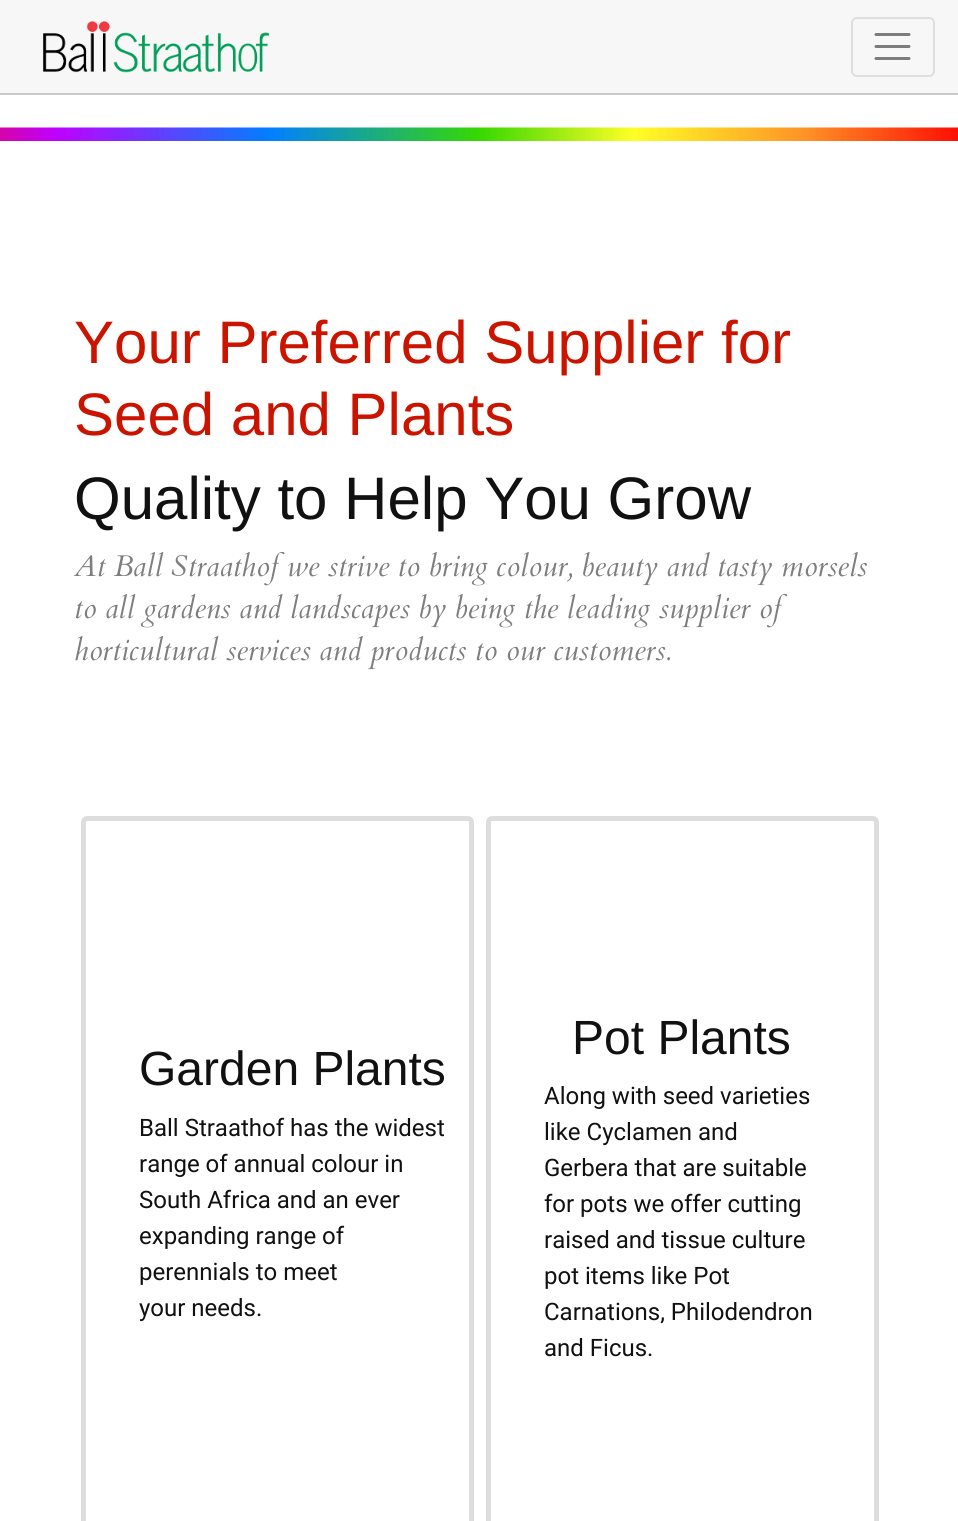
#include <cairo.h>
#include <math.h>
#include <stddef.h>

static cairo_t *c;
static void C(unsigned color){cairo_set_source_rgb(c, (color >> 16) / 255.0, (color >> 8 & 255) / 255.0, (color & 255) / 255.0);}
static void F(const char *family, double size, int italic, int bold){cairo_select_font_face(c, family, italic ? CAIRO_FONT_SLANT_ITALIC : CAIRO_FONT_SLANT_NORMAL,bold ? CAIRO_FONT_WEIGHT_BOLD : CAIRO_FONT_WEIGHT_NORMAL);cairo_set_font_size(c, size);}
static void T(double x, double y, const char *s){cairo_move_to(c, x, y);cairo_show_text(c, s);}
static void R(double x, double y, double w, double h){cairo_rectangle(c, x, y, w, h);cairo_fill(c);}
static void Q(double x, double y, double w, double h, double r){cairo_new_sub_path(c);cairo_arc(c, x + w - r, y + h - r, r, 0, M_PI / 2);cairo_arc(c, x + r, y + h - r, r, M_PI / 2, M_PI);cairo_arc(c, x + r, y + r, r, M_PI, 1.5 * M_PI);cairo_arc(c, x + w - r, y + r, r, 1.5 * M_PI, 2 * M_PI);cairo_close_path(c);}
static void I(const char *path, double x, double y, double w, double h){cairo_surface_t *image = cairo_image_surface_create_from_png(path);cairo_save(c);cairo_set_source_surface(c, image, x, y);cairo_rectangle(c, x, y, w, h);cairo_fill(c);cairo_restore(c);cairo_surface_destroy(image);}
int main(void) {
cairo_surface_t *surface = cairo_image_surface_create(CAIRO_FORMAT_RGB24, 958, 1521);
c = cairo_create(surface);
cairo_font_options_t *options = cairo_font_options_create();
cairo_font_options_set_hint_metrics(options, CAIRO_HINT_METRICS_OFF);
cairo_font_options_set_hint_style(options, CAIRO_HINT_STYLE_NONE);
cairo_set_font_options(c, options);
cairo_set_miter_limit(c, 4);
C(0xffffff);
cairo_paint(c);
C(0xf7f7f7);
R(0,0,958,93);
C(0xc9c9c9);
R(0,93,958,2);
I("1.png",43,21,226,52);
Q(852,18,82,58,5);
C(0xdedede);
cairo_stroke(c);
cairo_new_path(c);
cairo_move_to(c,876,34.5);
cairo_line_to(c,909,34.5);
cairo_move_to(c,876,46.5);
cairo_line_to(c,909,46.5);
cairo_move_to(c,876,58.5);
cairo_line_to(c,909,58.5);
C(0x7c7c7c);
cairo_set_line_width(c,3);
cairo_set_line_cap(c,CAIRO_LINE_CAP_ROUND);
cairo_stroke(c);
I("2.png",0,127,958,14);
F("Liberation Sans",60,0,0);
C(0xcb1400);
T(74,363,"Your Preferred Supplier for");
T(74,435,"Seed and Plants");
C(0x111111);
T(74,519,"Quality to Help You Grow");
F("Cardo",30,1,0);
C(0x7e7e7e);
T(74,576,"At Ball Straathof we strive to bring colour, beauty and tasty morsels");
T(74,618,"to all gardens and landscapes by being the leading supplier of");
T(74,660,"horticultural services and products to our customers.");
Q(83.5,818.5,388,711,3.5);
C(0xdddddd);
cairo_set_line_width(c,5);
cairo_set_line_cap(c,CAIRO_LINE_CAP_BUTT);
cairo_stroke(c);
F("Liberation Sans",48,0,0);
C(0x111111);
T(139,1085,"Garden Plants");
F("Roboto",24,0,0);
T(139,1136,"Ball Straathof has the widest");
T(139,1172,"range of annual colour in");
T(139,1208,"South Africa and an ever");
T(139,1244,"expanding range of");
T(139,1280,"perennials to meet");
T(139,1316,"your needs.");
Q(488.5,818.5,388,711,3.5);
C(0xdddddd);
cairo_stroke(c);
F("Liberation Sans",48,0,0);
C(0x111111);
T(572,1054,"Pot Plants");
F("Roboto",24,0,0);
T(544,1104,"Along with seed varieties");
T(544,1140,"like Cyclamen and");
T(544,1176,"Gerbera that are suitable");
T(544,1212,"for pots we offer cutting");
T(544,1248,"raised and tissue culture");
T(544,1284,"pot items like Pot");
T(544,1320,"Carnations, Philodendron");
T(544,1356,"and Ficus.");
cairo_surface_write_to_png(surface, "o.png");
cairo_font_options_destroy(options);
cairo_destroy(c);
cairo_surface_destroy(surface);
return 0;
}
